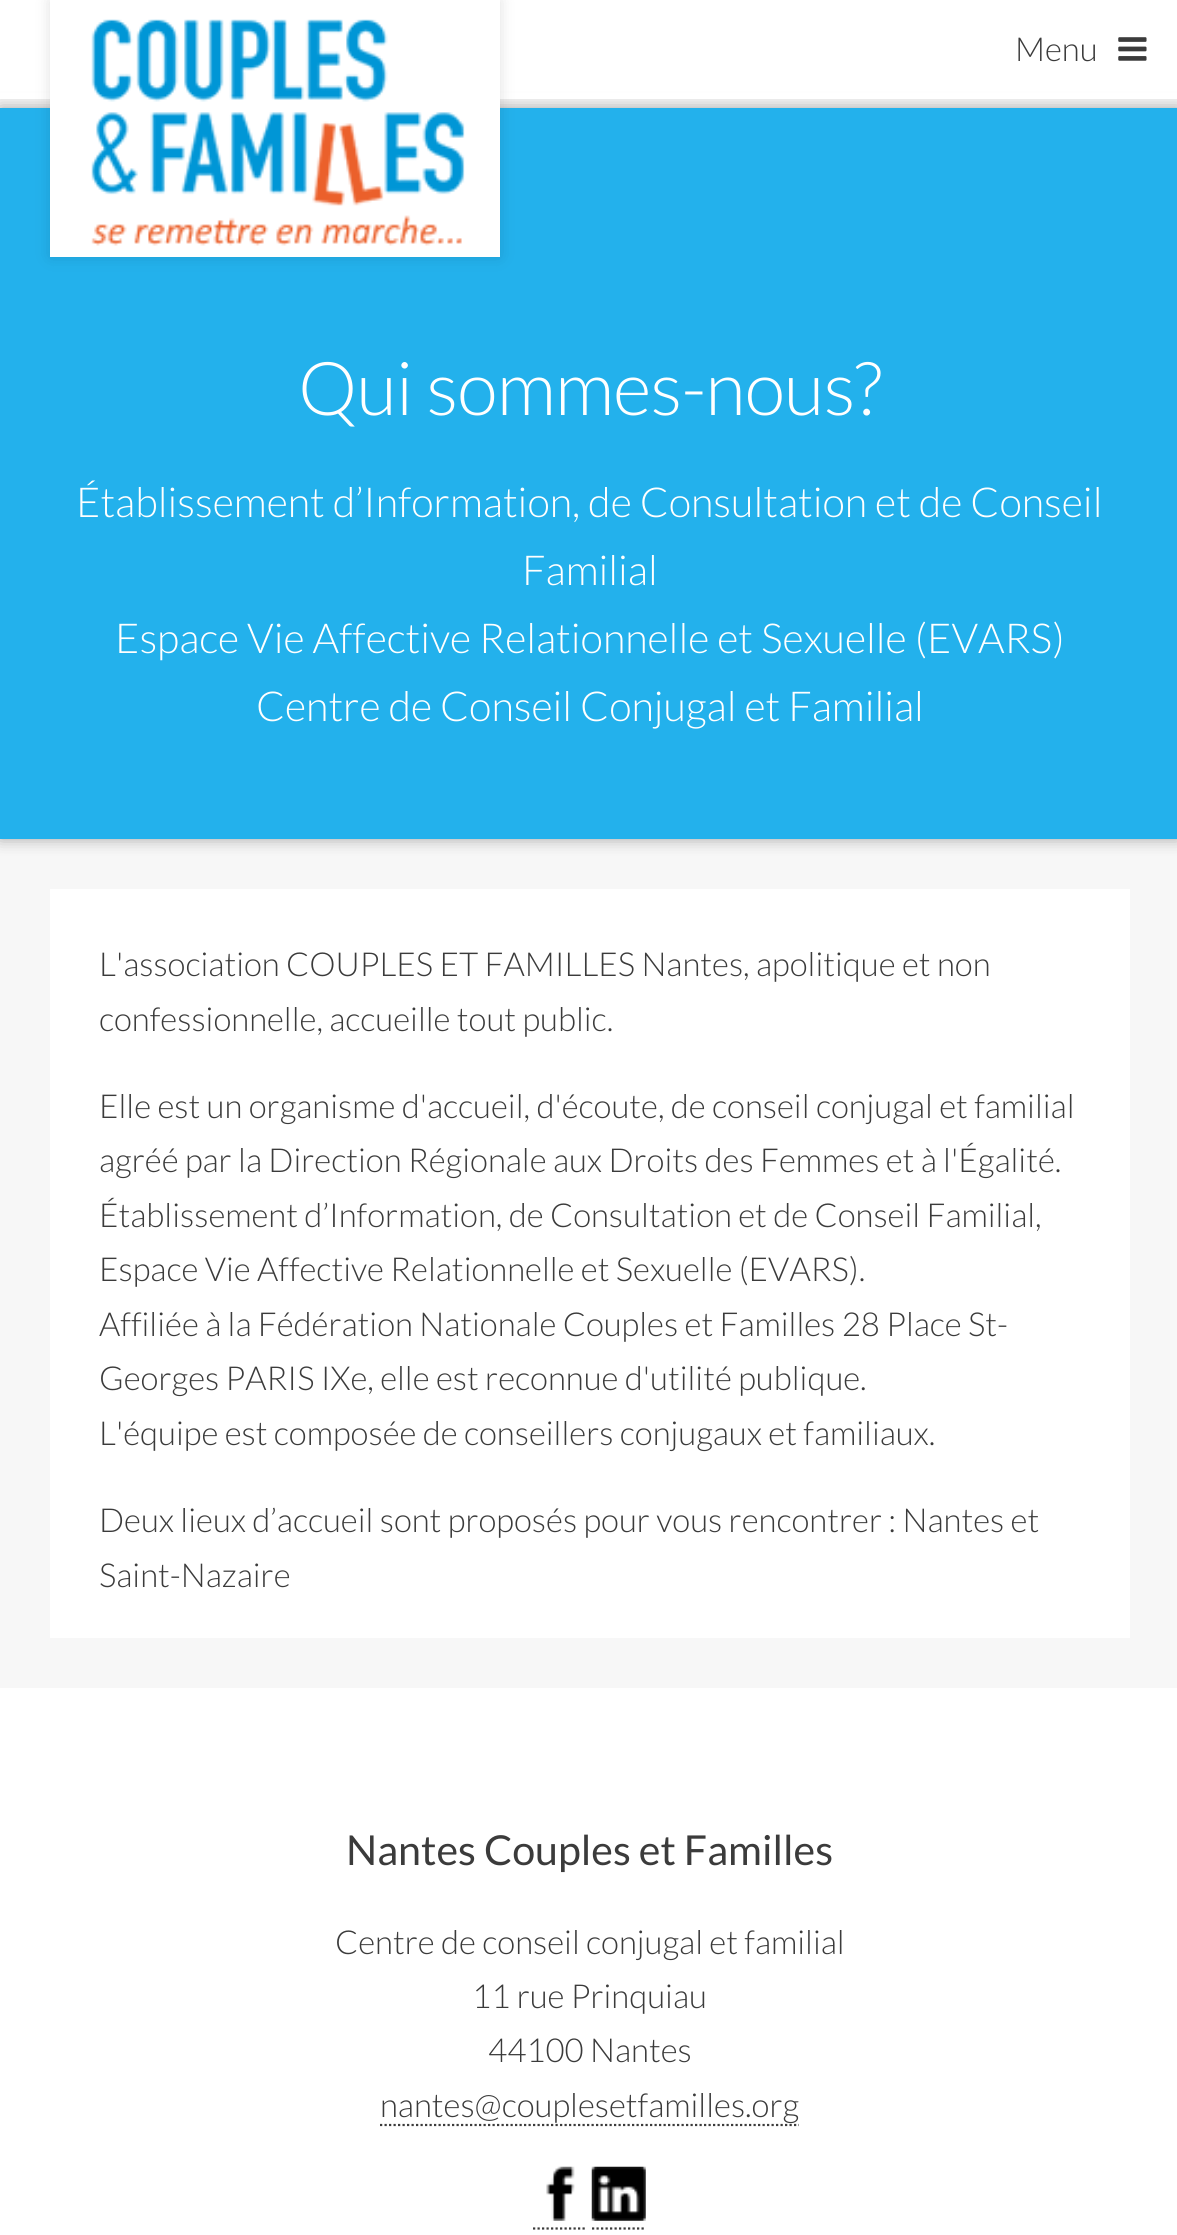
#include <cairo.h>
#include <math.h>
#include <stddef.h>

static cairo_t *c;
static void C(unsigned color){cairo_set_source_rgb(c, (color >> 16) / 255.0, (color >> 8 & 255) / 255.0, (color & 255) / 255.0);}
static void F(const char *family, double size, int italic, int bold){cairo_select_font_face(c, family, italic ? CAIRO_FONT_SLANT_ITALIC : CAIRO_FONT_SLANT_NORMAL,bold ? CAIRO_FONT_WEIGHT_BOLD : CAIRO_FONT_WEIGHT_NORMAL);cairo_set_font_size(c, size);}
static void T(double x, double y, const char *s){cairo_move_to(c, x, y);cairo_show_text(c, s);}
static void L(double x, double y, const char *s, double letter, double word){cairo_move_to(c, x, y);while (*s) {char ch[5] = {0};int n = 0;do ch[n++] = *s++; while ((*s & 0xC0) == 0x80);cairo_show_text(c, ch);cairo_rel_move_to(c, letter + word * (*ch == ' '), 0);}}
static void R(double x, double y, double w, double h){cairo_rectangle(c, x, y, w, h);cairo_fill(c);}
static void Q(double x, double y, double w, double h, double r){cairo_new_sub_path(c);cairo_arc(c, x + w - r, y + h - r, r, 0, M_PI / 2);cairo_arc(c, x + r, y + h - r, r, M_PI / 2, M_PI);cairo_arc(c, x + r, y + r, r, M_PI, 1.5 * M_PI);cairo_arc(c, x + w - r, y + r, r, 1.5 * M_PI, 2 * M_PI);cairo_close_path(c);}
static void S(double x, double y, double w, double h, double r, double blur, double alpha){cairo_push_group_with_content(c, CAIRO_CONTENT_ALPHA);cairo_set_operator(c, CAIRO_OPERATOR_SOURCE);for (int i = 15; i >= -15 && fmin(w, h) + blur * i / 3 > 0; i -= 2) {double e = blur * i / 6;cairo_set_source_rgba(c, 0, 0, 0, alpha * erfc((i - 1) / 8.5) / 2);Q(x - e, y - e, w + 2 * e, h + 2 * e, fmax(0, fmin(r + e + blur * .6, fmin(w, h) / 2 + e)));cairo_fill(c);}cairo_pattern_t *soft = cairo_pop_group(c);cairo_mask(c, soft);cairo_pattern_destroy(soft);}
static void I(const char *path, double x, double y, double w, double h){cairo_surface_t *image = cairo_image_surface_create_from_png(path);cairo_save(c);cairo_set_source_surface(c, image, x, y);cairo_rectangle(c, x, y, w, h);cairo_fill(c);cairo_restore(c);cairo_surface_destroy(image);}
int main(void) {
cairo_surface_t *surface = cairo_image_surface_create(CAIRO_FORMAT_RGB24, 1177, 2235);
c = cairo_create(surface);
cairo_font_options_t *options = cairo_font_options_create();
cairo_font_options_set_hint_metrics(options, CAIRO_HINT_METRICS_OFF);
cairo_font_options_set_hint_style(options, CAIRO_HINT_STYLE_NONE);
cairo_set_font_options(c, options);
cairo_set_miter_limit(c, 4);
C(0xffffff);
cairo_paint(c);
C(0xf7f7f7);
R(0,99,1177,1589);
C(0x000000);
S(0,108,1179,731,0,8,.33);
C(0xffffff);
R(0,93,1177,6);
C(0x23b1ec);
R(0,108,1177,731);
C(0x000000);
S(50,0,450,257,0,8,.12);
C(0xffffff);
R(50,0,450,257);
I("1.png",91,19,374,227);
F("Lato Light",33,0,0);
C(0x3b3b3b);
T(1015,61,"Menu");
I("2.png",1118,37,29,24);
F("Lato Light",74.25,0,0);
C(0xffffff);
L(298,415,"Qui sommes-nous?",-.8,0);
F("Lato Light",41.25,0,0);
T(76,517,"Établissement d’Information, de Consultation et de Conseil");
T(522,585,"Familial");
T(115,653,"Espace Vie Affective Relationnelle et Sexuelle (EVARS)");
T(256,721,"Centre de Conseil Conjugal et Familial");
R(50,889,1080,749);
F("Lato Light",33,0,0);
C(0x3b3b3b);
T(99,976,"L'association COUPLES ET FAMILLES Nantes, apolitique et non");
T(99,1031,"confessionnelle, accueille tout public.");
T(99,1118,"Elle est un organisme d'accueil, d'écoute, de conseil conjugal et familial");
T(99,1172,"agréé par la Direction Régionale aux Droits des Femmes et à l'Égalité.");
T(99,1227,"Établissement d’Information, de Consultation et de Conseil Familial,");
T(99,1281,"Espace Vie Affective Relationnelle et Sexuelle (EVARS).");
T(99,1336,"Affiliée à la Fédération Nationale Couples et Familles 28 Place St-");
T(99,1390,"Georges PARIS IXe, elle est reconnue d'utilité publique.");
T(99,1445,"L'équipe est composée de conseillers conjugaux et familiaux.");
T(99,1532,"Deux lieux d’accueil sont proposés pour vous rencontrer : Nantes et");
T(99,1587,"Saint-Nazaire");
F("Lato",41.25,0,0);
T(346,1865,"Nantes Couples et Familles");
F("Lato Light",33,0,0);
T(335,1954,"Centre de conseil conjugal et familial");
T(472,2008,"11 rue Prinquiau");
T(488,2062,"44100 Nantes");
cairo_new_path(c);
cairo_move_to(c,380,2125);
cairo_line_to(c,799,2125);
cairo_set_line_width(c,2.2);
cairo_set_dash(c,(double[]){2.25,2.25},2,0);
cairo_stroke(c);
T(380,2117,"nantes@couplesetfamilles.org");
I("3.png",546,2166,29,55);
I("4.png",591,2166,55,55);
cairo_new_path(c);
cairo_move_to(c,533,2228.5);
cairo_line_to(c,587,2228.5);
cairo_stroke(c);
cairo_new_path(c);
cairo_move_to(c,592,2228.5);
cairo_line_to(c,646,2228.5);
cairo_stroke(c);
cairo_surface_write_to_png(surface, "o.png");
cairo_font_options_destroy(options);
cairo_destroy(c);
cairo_surface_destroy(surface);
return 0;
}
